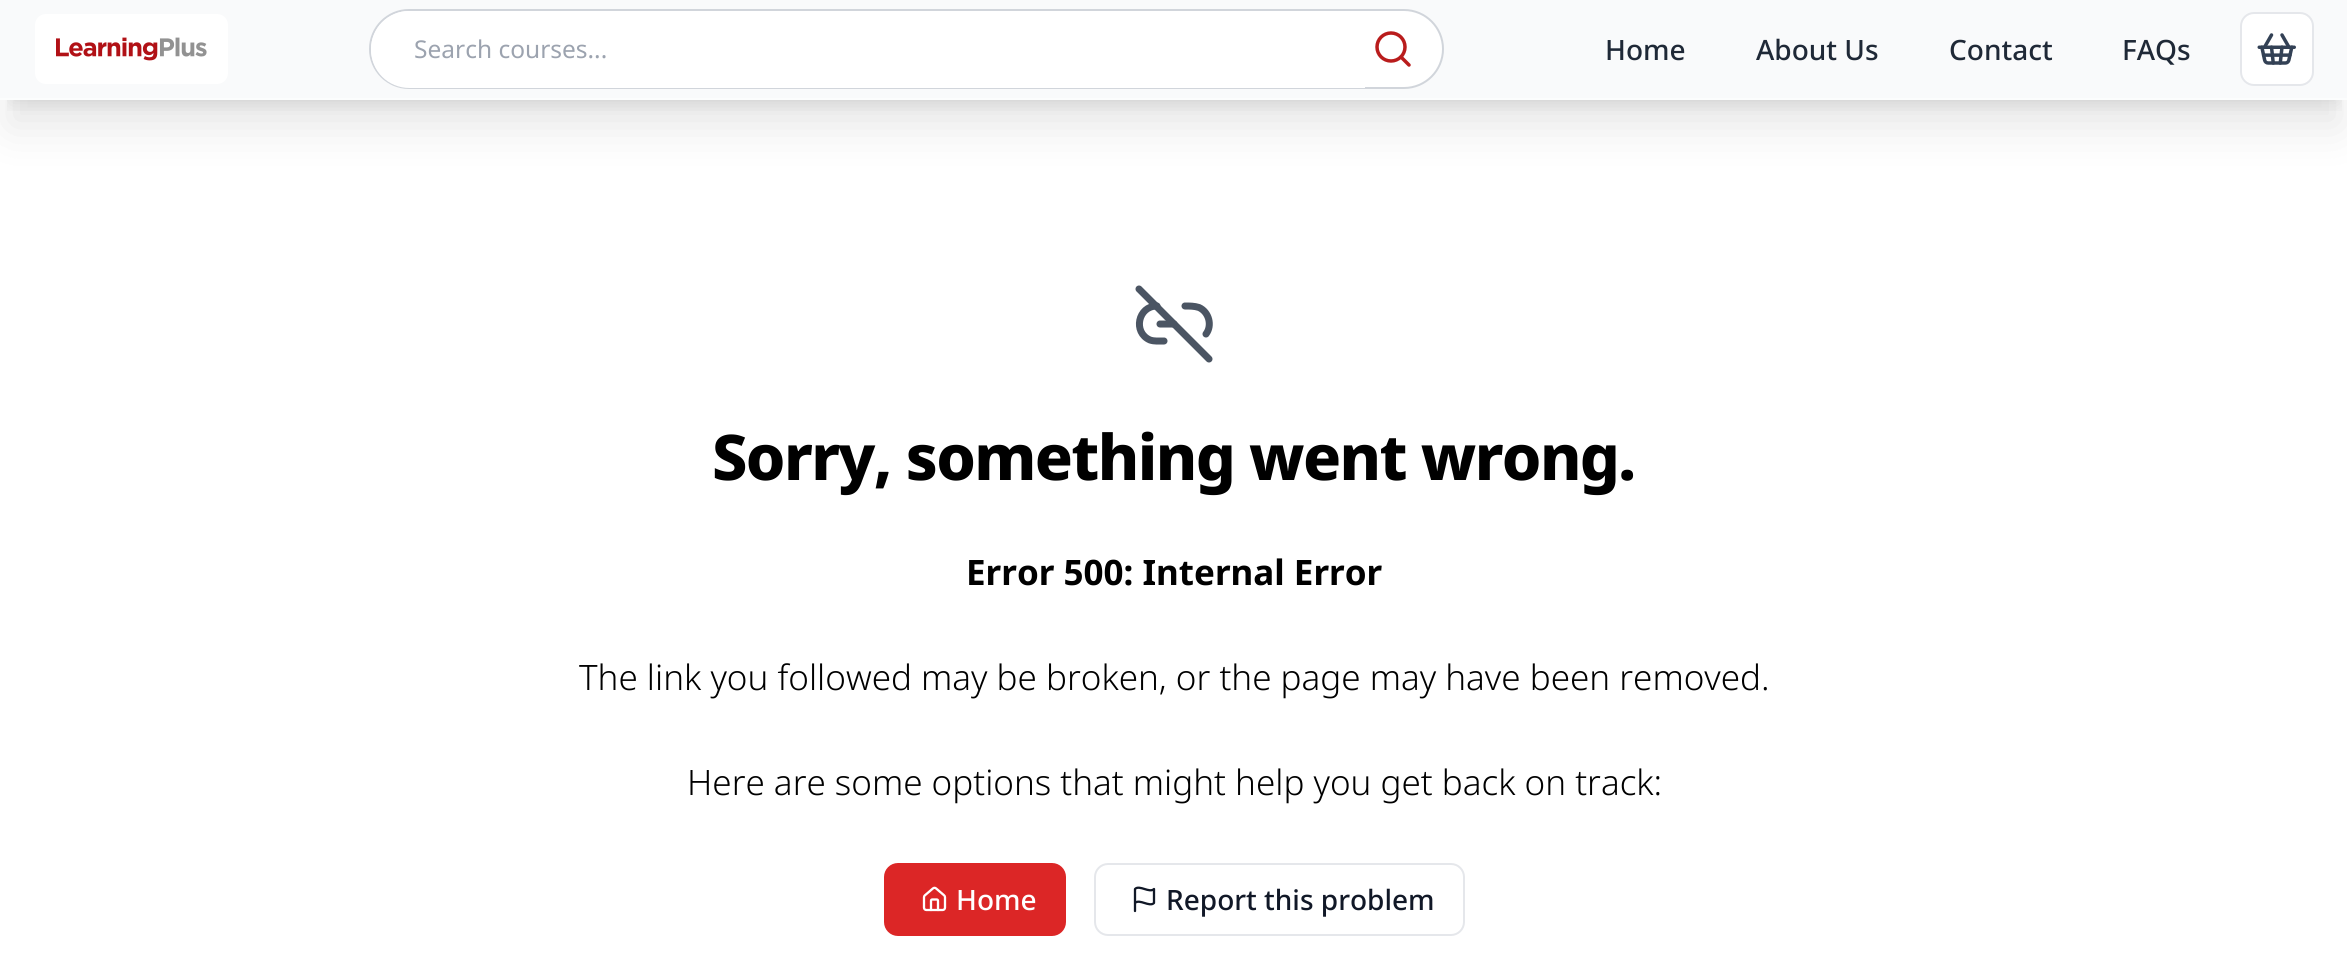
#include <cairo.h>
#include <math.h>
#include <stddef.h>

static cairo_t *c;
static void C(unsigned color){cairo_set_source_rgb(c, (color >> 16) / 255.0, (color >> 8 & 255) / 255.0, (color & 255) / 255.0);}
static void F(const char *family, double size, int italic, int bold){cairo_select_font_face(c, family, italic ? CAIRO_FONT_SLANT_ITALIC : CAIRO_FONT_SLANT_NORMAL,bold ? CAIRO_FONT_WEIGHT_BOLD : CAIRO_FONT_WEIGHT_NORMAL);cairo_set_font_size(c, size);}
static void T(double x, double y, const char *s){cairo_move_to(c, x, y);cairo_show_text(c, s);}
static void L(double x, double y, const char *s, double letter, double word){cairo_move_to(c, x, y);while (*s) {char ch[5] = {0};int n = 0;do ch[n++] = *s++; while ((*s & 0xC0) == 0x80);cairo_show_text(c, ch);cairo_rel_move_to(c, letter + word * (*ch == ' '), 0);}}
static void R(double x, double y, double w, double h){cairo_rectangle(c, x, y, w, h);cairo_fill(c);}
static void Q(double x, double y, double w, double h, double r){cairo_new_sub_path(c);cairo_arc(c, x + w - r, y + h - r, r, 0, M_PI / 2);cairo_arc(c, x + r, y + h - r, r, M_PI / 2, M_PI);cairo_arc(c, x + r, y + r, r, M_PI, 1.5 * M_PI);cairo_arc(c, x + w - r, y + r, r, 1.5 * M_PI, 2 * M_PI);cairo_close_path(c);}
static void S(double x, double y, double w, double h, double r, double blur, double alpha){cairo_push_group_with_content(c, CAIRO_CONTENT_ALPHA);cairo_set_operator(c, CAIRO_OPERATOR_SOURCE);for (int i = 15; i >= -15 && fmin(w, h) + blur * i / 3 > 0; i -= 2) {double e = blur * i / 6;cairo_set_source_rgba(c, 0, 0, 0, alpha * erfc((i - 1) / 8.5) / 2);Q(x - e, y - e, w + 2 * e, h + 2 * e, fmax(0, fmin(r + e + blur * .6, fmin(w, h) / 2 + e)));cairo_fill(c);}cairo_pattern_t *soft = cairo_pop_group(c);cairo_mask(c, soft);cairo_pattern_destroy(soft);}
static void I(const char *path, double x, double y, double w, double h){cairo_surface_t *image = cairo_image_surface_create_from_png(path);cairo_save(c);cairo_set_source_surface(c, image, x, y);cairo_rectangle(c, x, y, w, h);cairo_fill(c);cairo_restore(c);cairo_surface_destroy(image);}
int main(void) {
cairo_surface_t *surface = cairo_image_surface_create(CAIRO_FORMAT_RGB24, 2347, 978);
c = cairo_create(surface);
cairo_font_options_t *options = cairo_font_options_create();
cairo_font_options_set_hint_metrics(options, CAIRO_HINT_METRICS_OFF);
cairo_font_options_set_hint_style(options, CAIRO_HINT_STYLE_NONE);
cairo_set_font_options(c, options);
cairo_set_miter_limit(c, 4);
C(0xf3f4f6);
cairo_paint(c);
C(0xffffff);
R(0,100,2347,878);
cairo_save(c);
cairo_rectangle(c,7,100,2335,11);
cairo_clip(c);
C(0x000000);
S(11,25,2327,78,0,9,.1);
cairo_restore(c);
cairo_save(c);
cairo_set_fill_rule(c,CAIRO_FILL_RULE_EVEN_ODD);
cairo_new_path(c);
cairo_move_to(c,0,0);
cairo_line_to(c,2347,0);
cairo_line_to(c,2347,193);
cairo_line_to(c,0,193);
cairo_close_path(c);
cairo_move_to(c,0,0);
cairo_line_to(c,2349,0);
cairo_line_to(c,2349,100);
cairo_line_to(c,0,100);
cairo_close_path(c);
cairo_clip(c);
C(0x000000);
S(9,44,2331,82,0,22,.1);
cairo_restore(c);
cairo_set_source_rgba(c,1,1,1,0.5);
R(0,0,2347,100);
R(0,98,2347,2);
C(0xffffff);
Q(35,14,193,70,11);
cairo_fill(c);
I("1.png",56,37,151,24);
Q(370,10,1073,78,39);
cairo_fill_preserve(c);
C(0xd1d5db);
cairo_stroke(c);
C(0xffffff);
cairo_new_path(c);
cairo_move_to(c,409.5,11);
cairo_line_to(c,1365,11);
cairo_line_to(c,1365,88);
cairo_line_to(c,409.5,88);
cairo_curve_to(c,388,88,371,71,371,49.5);
cairo_curve_to(c,371,28,388,11,409.5,11);
cairo_close_path(c);
cairo_fill(c);
F("Noto Sans",24.5,0,0);
C(0x9ca3af);
T(414,58,"Search courses...");
cairo_new_path(c);
cairo_arc(c,1391,47,14,0,2 * M_PI);
C(0xb91c1c);
cairo_set_line_width(c,3.5);
cairo_stroke(c);
cairo_new_path(c);
cairo_move_to(c,1409,65);
cairo_line_to(c,1401,57);
cairo_set_line_cap(c,CAIRO_LINE_CAP_ROUND);
cairo_set_line_join(c,CAIRO_LINE_JOIN_ROUND);
cairo_stroke(c);
F("Noto Sans Medium",28,0,0);
C(0x1f2937);
T(1605,60,"Home");
T(1756,60,"About Us");
T(1949,60,"Contact");
T(2122,60,"FAQs");
C(0xffffff);
Q(2241,13,72,72,13);
cairo_fill_preserve(c);
C(0xe5e7eb);
cairo_set_line_width(c,2);
cairo_set_line_cap(c,CAIRO_LINE_CAP_BUTT);
cairo_set_line_join(c,CAIRO_LINE_JOIN_MITER);
cairo_stroke(c);
I("2.png",2257,33,39,32);
cairo_new_path(c);
cairo_move_to(c,1164,341);
cairo_curve_to(c,1159,341,1154.5,341.5,1150,340);
cairo_curve_to(c,1132.5,332.5,1138,306,1157,306);
C(0x4b5563);
cairo_set_line_width(c,7);
cairo_set_line_cap(c,CAIRO_LINE_CAP_ROUND);
cairo_set_line_join(c,CAIRO_LINE_JOIN_ROUND);
cairo_stroke(c);
cairo_new_path(c);
cairo_move_to(c,1185,306);
cairo_curve_to(c,1189.5,306,1194.5,306,1199,307.5);
cairo_curve_to(c,1209,312,1212.5,325.5,1206,334);
cairo_move_to(c,1160,324);
cairo_line_to(c,1174,324);
cairo_stroke(c);
cairo_new_path(c);
cairo_move_to(c,1139,289);
cairo_line_to(c,1209,359);
cairo_stroke(c);
F("Noto Sans ExtraBold",63,0,0);
C(0x000000);
L(712,480,"Sorry, something went wrong.",-1.6,0);
F("Noto Sans",35,0,1);
T(966,585,"Error 500: Internal Error");
F("Noto Sans Light",35,0,0);
T(579,690,"The link you followed may be broken, or the page may have been removed.");
T(687,795,"Here are some options that might help you get back on track:");
C(0xdc2626);
Q(884,863,182,73,14);
cairo_fill(c);
I("3.png",922,886,25,26);
F("Noto Sans Medium",28,0,0);
C(0xffffff);
T(956,910,"Home");
Q(1095,864,369,71,13);
C(0xe5e7eb);
cairo_set_line_width(c,2);
cairo_set_line_cap(c,CAIRO_LINE_CAP_BUTT);
cairo_set_line_join(c,CAIRO_LINE_JOIN_MITER);
cairo_stroke(c);
cairo_new_path(c);
cairo_move_to(c,1135,903);
cairo_curve_to(c,1139.5,898.5,1149.5,907.5,1154,903);
cairo_line_to(c,1154,889);
cairo_curve_to(c,1149.5,893.5,1139.5,884.5,1135,889);
cairo_close_path(c);
cairo_move_to(c,1135,911);
cairo_line_to(c,1135,903);
C(0x111827);
cairo_set_line_width(c,2.3);
cairo_set_line_cap(c,CAIRO_LINE_CAP_ROUND);
cairo_set_line_join(c,CAIRO_LINE_JOIN_ROUND);
cairo_stroke(c);
T(1166,910,"Report this problem");
cairo_surface_write_to_png(surface, "o.png");
cairo_font_options_destroy(options);
cairo_destroy(c);
cairo_surface_destroy(surface);
return 0;
}
